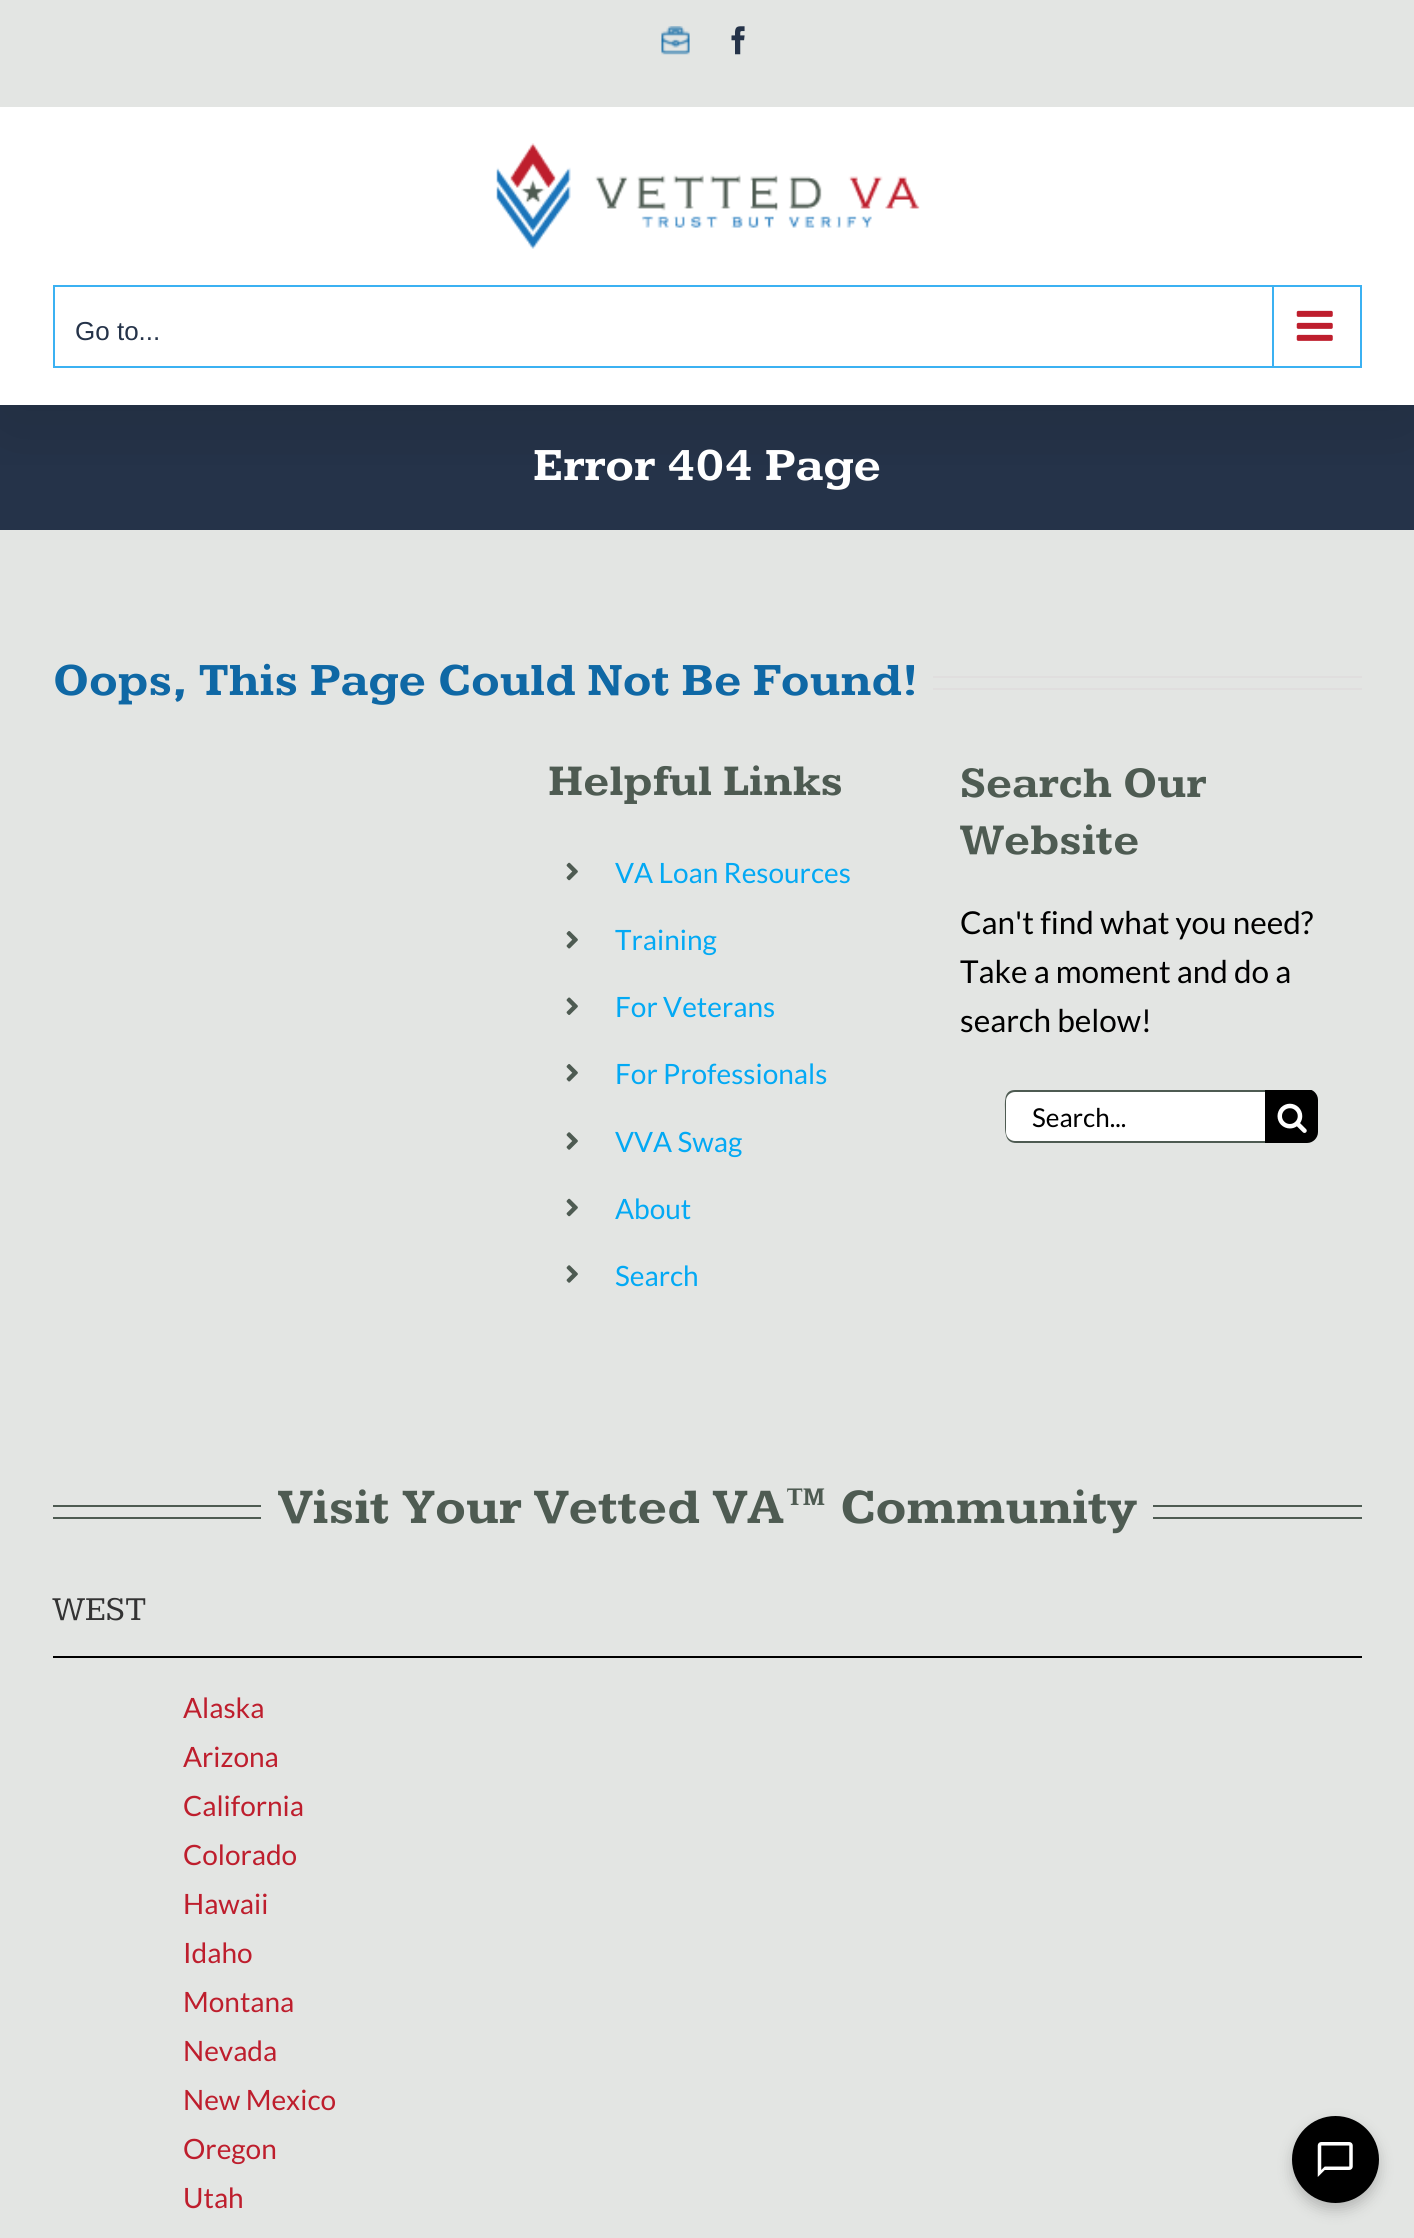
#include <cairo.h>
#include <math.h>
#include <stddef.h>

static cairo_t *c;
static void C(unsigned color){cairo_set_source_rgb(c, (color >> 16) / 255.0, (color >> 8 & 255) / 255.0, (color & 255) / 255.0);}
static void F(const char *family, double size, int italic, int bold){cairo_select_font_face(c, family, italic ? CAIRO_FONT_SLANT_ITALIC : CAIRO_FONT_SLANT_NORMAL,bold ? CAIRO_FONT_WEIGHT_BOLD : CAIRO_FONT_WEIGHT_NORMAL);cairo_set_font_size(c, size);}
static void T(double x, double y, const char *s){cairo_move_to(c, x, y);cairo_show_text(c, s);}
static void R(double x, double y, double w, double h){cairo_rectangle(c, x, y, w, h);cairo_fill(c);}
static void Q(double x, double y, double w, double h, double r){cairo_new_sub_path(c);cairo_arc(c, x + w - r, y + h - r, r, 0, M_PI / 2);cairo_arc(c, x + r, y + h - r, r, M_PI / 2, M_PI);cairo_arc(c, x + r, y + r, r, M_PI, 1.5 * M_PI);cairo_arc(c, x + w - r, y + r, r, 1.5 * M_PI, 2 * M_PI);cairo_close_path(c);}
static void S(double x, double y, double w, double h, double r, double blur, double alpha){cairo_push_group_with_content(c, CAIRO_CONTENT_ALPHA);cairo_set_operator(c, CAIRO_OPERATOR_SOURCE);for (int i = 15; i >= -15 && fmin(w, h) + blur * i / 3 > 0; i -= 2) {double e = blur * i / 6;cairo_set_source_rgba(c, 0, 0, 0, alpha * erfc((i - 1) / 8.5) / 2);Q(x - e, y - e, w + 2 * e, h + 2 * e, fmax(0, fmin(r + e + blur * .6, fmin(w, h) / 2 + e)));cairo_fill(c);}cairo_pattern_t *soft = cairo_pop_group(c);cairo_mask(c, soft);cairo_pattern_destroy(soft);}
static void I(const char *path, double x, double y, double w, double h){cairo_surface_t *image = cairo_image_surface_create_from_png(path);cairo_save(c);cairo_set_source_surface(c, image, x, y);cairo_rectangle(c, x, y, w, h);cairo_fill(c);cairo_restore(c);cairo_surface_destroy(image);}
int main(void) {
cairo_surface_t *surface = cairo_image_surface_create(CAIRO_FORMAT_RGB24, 1414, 2238);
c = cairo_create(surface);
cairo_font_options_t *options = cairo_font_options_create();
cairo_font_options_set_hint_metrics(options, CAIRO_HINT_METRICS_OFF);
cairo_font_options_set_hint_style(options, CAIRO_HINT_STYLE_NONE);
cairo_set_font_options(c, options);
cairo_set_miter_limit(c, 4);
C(0xe3e5e3);
cairo_paint(c);
C(0x253349);
R(0,405,1414,125);
cairo_save(c);
cairo_rectangle(c,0,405,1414,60);
cairo_clip(c);
C(0x000000);
S(4,21,1407,397,0,44,.14);
cairo_restore(c);
C(0xffffff);
R(0,107,1414,298);
I("1.png",661,26,29,29);
I("2.png",731,26,14,29);
I("3.png",496,143,424,106);
cairo_rectangle(c,54,286,1307,81);
C(0x3bb1f2);
cairo_stroke(c);
F("Liberation Sans",26,0,0);
C(0x253349);
T(75,340,"Go to...");
C(0x3bb1f2);
R(1272,287,2,79);
I("4.png",1296,310,37,31);
F("Kameron",46.9,0,1);
C(0xffffff);
T(533,480,"Error 404 Page");
C(0x0f68a5);
T(53,695,"Oops, This Page Could Not Be Found!");
C(0xe0dede);
R(933,676,429,2);
R(933,688,429,2);
F("Kameron",44.5,0,1);
C(0x4e5b52);
T(548,795,"Helpful Links");
I("5.png",566,862,12,19);
F("Lato",28,0,0);
C(0x03a9f4);
T(615,883,"VA Loan Resources");
I("6.png",566,931,12,18);
T(615,950,"Training");
I("7.png",566,997,12,18);
T(615,1017,"For Veterans");
I("6.png",566,1064,12,18);
T(615,1084,"For Professionals");
I("8.png",566,1132,12,18);
T(615,1152,"VVA Swag");
I("5.png",566,1198,12,19);
T(615,1219,"About");
I("8.png",566,1265,12,18);
T(615,1286,"Search");
F("Kameron",44.5,0,1);
C(0x4e5b52);
T(960,797,"Search Our");
T(960,854,"Website");
F("Lato",31.5,0,0);
C(0x000000);
T(960,934,"Can't find what you need?");
T(960,983,"Take a moment and do a");
T(960,1032,"search below!");
C(0xffffff);
cairo_new_path(c);
cairo_move_to(c,1016,1090);
cairo_line_to(c,1265,1090);
cairo_line_to(c,1265,1143);
cairo_line_to(c,1016,1143);
cairo_curve_to(c,1010,1143,1005,1138,1005,1132);
cairo_line_to(c,1005,1101);
cairo_curve_to(c,1005,1095,1010,1090,1016,1090);
cairo_close_path(c);
cairo_fill(c);
C(0x4e5b52);
cairo_new_path(c);
cairo_move_to(c,1015,1090);
cairo_curve_to(c,1003,1090,1005,1103,1005,1111);
cairo_line_to(c,1005,1127);
cairo_curve_to(c,1005,1134,1006,1143,1016,1143);
cairo_line_to(c,1265,1143);
cairo_line_to(c,1265,1141);
cairo_line_to(c,1015,1141);
cairo_curve_to(c,1010,1141,1006,1137,1006,1132);
cairo_line_to(c,1006,1101);
cairo_curve_to(c,1006,1096,1010,1092,1015,1092);
cairo_line_to(c,1265,1092);
cairo_line_to(c,1265,1090);
cairo_close_path(c);
cairo_fill(c);
F("Lato",26,0,0);
C(0x000000);
T(1032,1127,"Search...");
cairo_save(c);
Q(1005,1089,313,54,11);
cairo_clip(c);
cairo_new_path(c);
cairo_move_to(c,1265,1090);
cairo_line_to(c,1318,1090);
cairo_line_to(c,1318,1132);
cairo_curve_to(c,1318,1138,1313,1143,1307,1143);
cairo_line_to(c,1265,1143);
cairo_close_path(c);
cairo_fill(c);
cairo_restore(c);
I("9.png",1277,1103,30,30);
C(0x4e5b52);
R(53,1505,208,2);
R(53,1517,208,2);
F("Kameron",50.5,0,1);
T(278,1523,"Visit Your Vetted VA™ Community");
R(1153,1505,209,2);
R(1153,1517,209,2);
C(0x000000);
R(53,1656,1309,2);
F("Kameron",34.5,0,0);
C(0x333333);
T(52,1620,"WEST");
F("Lato",28,0,0);
C(0xbe1e2d);
T(183,1718,"Alaska");
T(183,1767,"Arizona");
T(183,1816,"California");
T(183,1865,"Colorado");
T(183,1914,"Hawaii");
T(183,1963,"Idaho");
T(183,2012,"Montana");
T(183,2061,"Nevada");
T(183,2110,"New Mexico");
T(183,2159,"Oregon");
T(183,2208,"Utah");
C(0x000000);
S(1292,2123,87,87,43.5,7,.2);
C(0x000000);
cairo_arc(c,1335.5,2159.5,43.5,0,2 * M_PI);
cairo_fill(c);
I("10.png",1317,2142,36,35);
cairo_surface_write_to_png(surface, "o.png");
cairo_font_options_destroy(options);
cairo_destroy(c);
cairo_surface_destroy(surface);
return 0;
}
